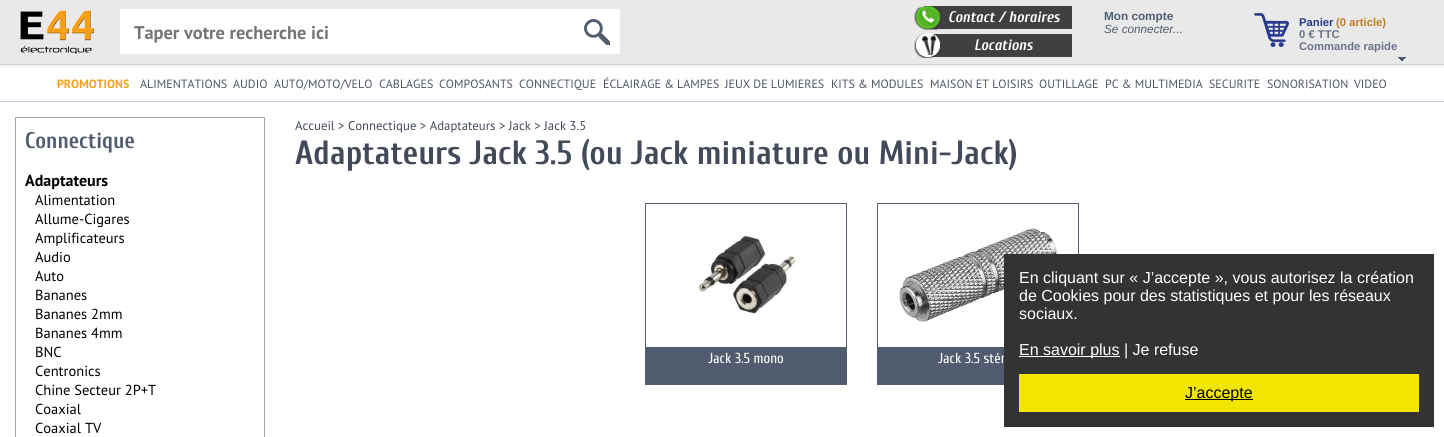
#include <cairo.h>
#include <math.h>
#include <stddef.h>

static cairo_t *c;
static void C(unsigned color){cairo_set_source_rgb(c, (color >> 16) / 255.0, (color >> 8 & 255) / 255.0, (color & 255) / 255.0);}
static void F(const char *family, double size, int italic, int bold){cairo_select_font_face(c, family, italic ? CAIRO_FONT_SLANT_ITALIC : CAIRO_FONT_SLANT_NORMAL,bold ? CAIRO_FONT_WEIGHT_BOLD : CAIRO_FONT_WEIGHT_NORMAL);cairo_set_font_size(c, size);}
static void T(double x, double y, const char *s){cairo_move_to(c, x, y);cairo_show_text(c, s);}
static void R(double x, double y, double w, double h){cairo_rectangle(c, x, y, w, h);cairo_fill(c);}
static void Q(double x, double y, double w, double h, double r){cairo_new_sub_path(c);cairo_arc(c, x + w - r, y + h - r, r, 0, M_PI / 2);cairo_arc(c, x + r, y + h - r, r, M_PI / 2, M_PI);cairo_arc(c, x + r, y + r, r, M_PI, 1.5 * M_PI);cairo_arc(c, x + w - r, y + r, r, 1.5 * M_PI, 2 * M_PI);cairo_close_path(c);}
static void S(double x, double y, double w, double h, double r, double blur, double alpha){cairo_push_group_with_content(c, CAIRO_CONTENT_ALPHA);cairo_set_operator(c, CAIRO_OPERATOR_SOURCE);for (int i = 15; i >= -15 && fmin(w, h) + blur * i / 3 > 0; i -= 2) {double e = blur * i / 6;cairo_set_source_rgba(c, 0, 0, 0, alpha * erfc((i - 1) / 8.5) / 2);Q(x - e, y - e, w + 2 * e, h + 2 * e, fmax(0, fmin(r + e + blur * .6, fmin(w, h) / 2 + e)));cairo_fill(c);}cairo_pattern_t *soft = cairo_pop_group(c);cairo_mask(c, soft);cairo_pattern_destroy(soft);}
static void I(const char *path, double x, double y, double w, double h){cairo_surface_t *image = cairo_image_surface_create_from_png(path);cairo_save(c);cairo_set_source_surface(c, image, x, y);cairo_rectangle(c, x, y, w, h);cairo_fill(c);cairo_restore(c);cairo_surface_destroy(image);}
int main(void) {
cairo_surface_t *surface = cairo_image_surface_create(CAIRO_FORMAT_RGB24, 1444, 437);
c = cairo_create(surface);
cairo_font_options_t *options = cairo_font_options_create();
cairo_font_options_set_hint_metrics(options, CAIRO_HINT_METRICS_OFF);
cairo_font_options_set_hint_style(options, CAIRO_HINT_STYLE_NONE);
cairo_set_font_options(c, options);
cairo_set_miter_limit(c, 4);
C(0xffffff);
cairo_paint(c);
C(0xd3d3d3);
S(0,0,1444,65,0,1.5,1);
C(0xe9e9e9);
R(0,0,1444,64);
C(0xd3d3d3);
R(0,64,1444,1);
I("1.png",20,10,74,44);
C(0xffffff);
R(120,9,500,45);
F("PT Sans",18.4,0,1);
C(0x757575);
T(134,39,"Taper votre recherche ici");
I("2.png",584,19,26,26);
I("3.png",914,6,158,24);
F("Cuprum",15.25,1,1);
C(0xffffff);
T(948,22,"Contact / horaires");
I("4.png",914,33,158,25);
T(974,50,"Locations");
F("Liberation Sans",11.75,0,1);
C(0x515c6e);
T(1104,20,"Mon compte");
F("Liberation Sans",11.75,1,0);
T(1104,33,"Se connecter...");
I("5.png",1254,13,35,34);
F("Liberation Sans",11.25,0,1);
C(0x273a8d);
T(1299,26,"Panier");
C(0xbd7e24);
T(1336,26,"(0 article)");
C(0x6c738d);
T(1299,38,"0 € TTC");
T(1299,50,"Commande rapide");
I("6.png",1398,57,8,4);
C(0xc3c8df);
R(0,101,1444,1);
F("PT Sans",12,0,1);
C(0xf5a01a);
T(57,88,"PROMOTIONS");
F("PT Sans",12,0,0);
C(0x4f5765);
T(140,88,"ALIMENTATIONS");
T(233,88,"AUDIO");
T(274,88,"AUTO/MOTO/VELO");
T(379,88,"CABLAGES");
T(439,88,"COMPOSANTS");
T(519,88,"CONNECTIQUE");
T(603,88,"ÉCLAIRAGE & LAMPES");
T(725,88,"JEUX DE LUMIERES");
T(831,88,"KITS & MODULES");
T(930,88,"MAISON ET LOISIRS");
T(1039,88,"OUTILLAGE");
T(1105,88,"PC & MULTIMEDIA");
T(1209,88,"SECURITE");
T(1267,88,"SONORISATION");
T(1354,88,"VIDEO");
cairo_rectangle(c,15.5,117.5,249,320);
C(0xa0a6b0);
cairo_set_line_width(c,1);
cairo_stroke(c);
F("Cuprum",22.5,0,1);
C(0x515c6e);
T(25,148,"Connectique");
F("PT Sans",16,0,1);
C(0x000000);
T(25,186,"Adaptateurs");
F("PT Sans",14.5,0,0);
T(35,205,"Alimentation");
T(35,224,"Allume-Cigares");
T(35,243,"Amplificateurs");
T(35,262,"Audio");
T(35,281,"Auto");
T(35,300,"Bananes");
T(35,319,"Bananes 2mm");
T(35,338,"Bananes 4mm");
T(35,357,"BNC");
T(35,376,"Centronics");
T(35,395,"Chine Secteur 2P+T");
T(35,414,"Coaxial");
T(35,433,"Coaxial TV");
F("PT Sans",12.8,0,0);
C(0x424a59);
T(295,130,"Accueil > Connectique > Adaptateurs > Jack > Jack 3.5");
F("Cuprum",33.6,0,1);
T(295,164,"Adaptateurs Jack 3.5 (ou Jack miniature ou Mini-Jack)");
cairo_rectangle(c,645.5,203.5,201,181);
C(0x515c6e);
cairo_stroke(c);
I("7.png",698,235,99,79);
R(646,347,200,37);
F("Cuprum",14.5,0,0);
C(0xffffff);
T(708,363,"Jack 3.5 mono");
cairo_rectangle(c,877.5,203.5,201,181);
C(0x515c6e);
cairo_stroke(c);
I("8.png",899,228,158,94);
R(878,347,126,37);
C(0xffffff);
T(938,363,"Jack 3.5 stér");
C(0x333333);
R(1004,254,430,173);
F("Liberation Sans",16,0,0);
C(0xffffff);
T(1019,283,"En cliquant sur « J’accepte », vous autorisez la création");
T(1019,301,"de Cookies pour des statistiques et pour les réseaux");
T(1019,319,"sociaux.");
R(1019,356,101,1);
T(1019,355,"En savoir plus | Je refuse");
C(0xf2e500);
R(1019,374,400,38);
C(0x000000);
R(1185,399,68,1);
T(1185,398,"J’accepte");
cairo_surface_write_to_png(surface, "o.png");
cairo_font_options_destroy(options);
cairo_destroy(c);
cairo_surface_destroy(surface);
return 0;
}
